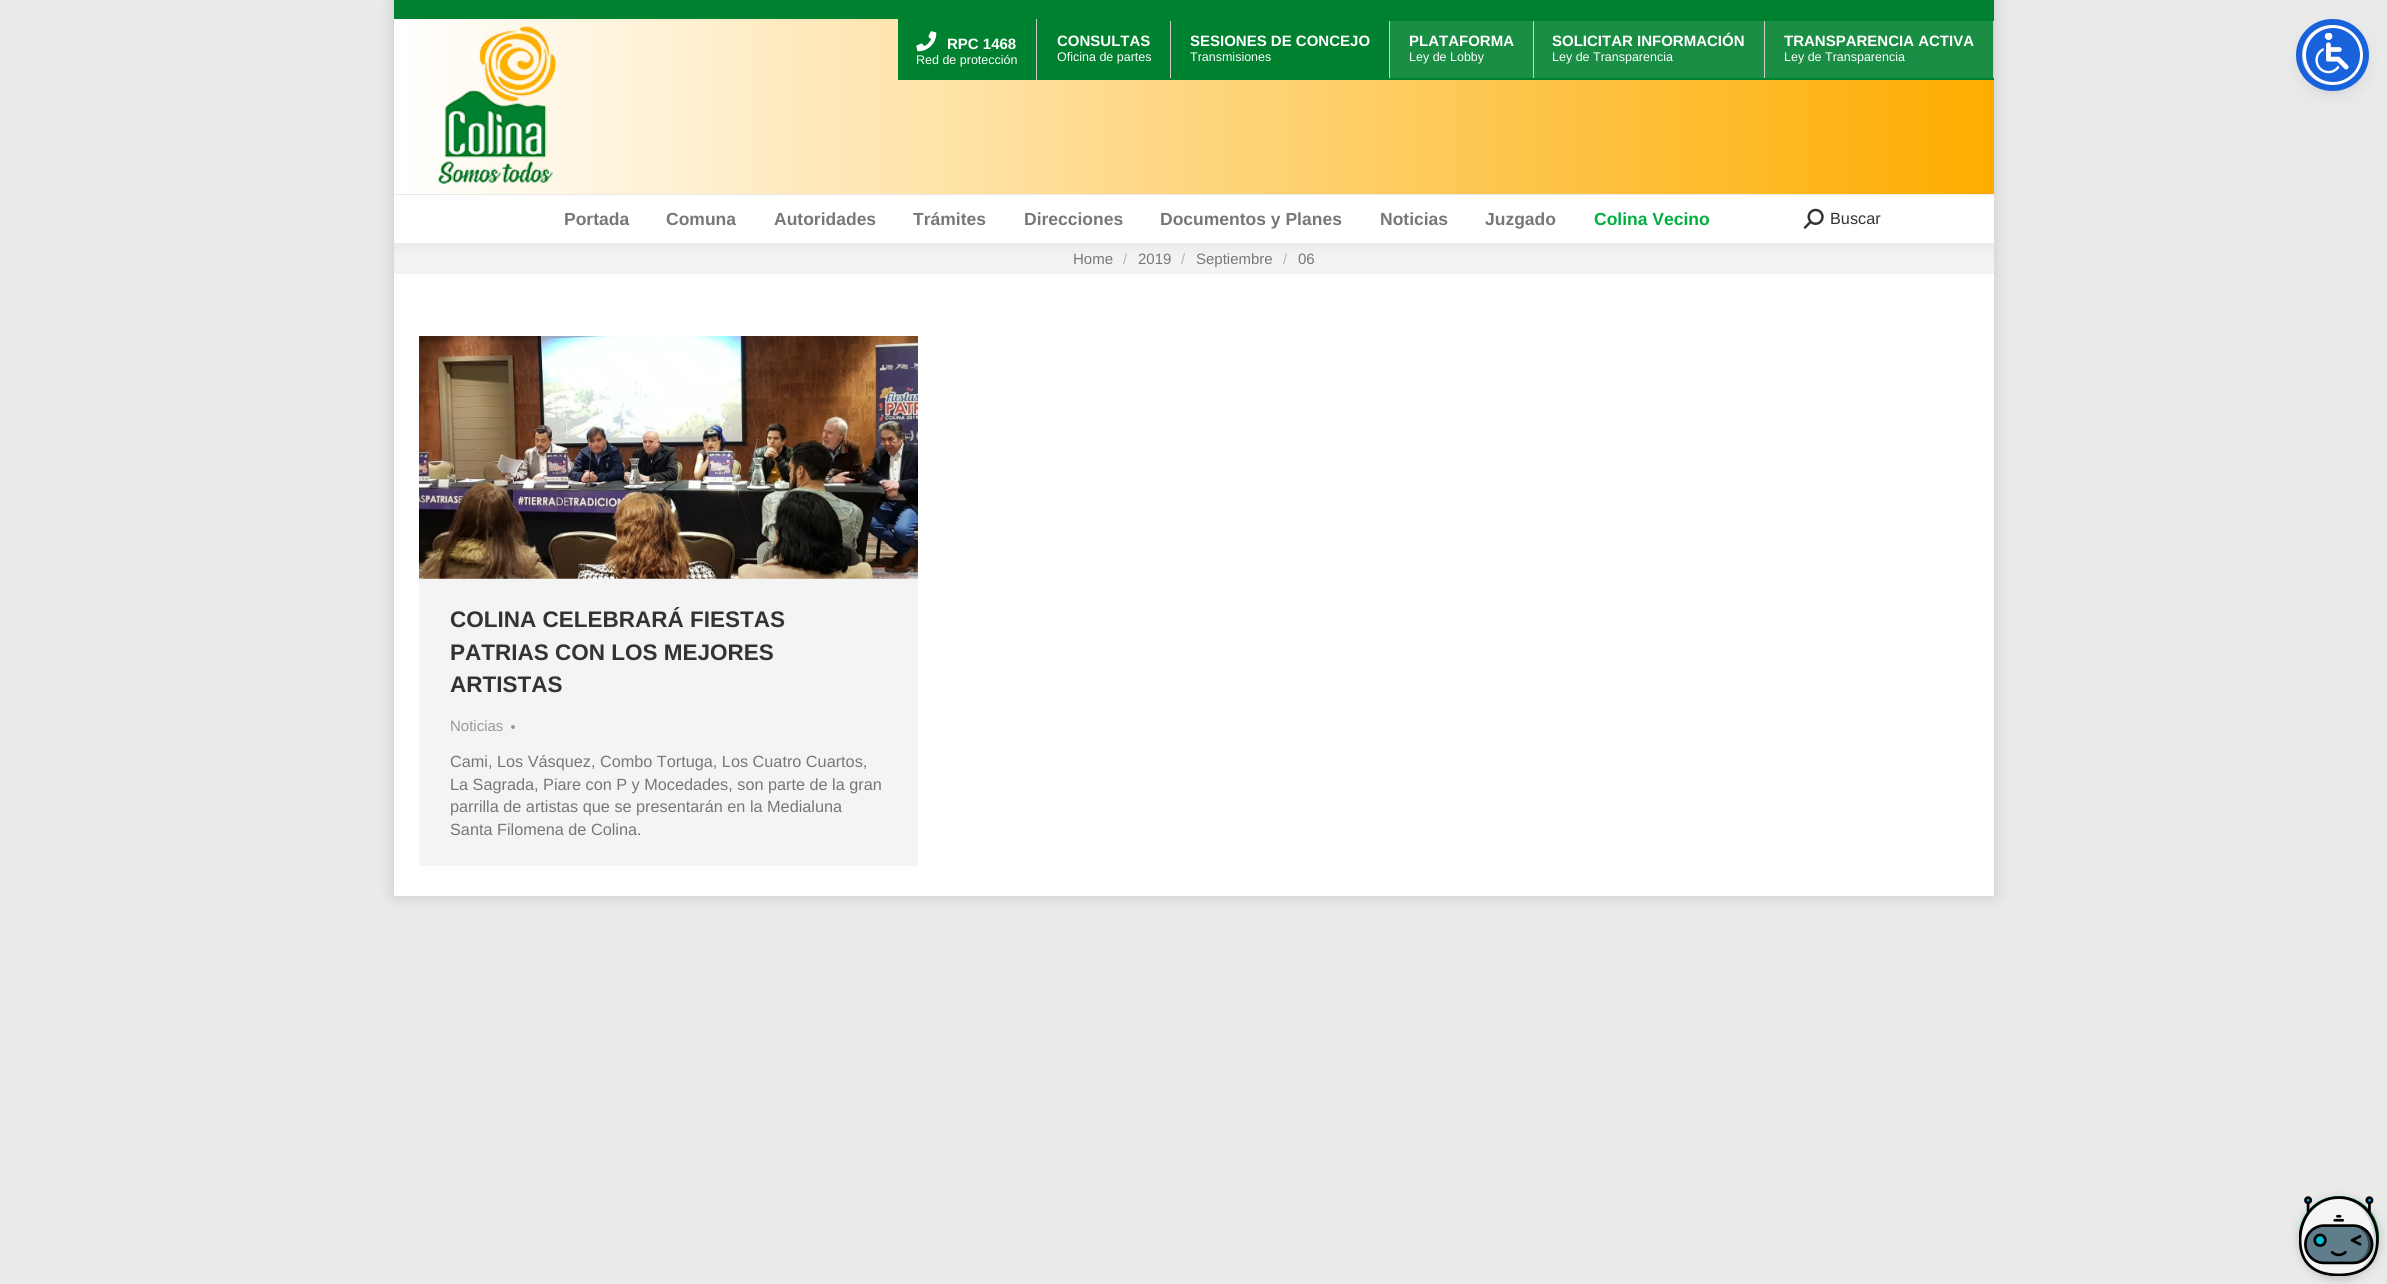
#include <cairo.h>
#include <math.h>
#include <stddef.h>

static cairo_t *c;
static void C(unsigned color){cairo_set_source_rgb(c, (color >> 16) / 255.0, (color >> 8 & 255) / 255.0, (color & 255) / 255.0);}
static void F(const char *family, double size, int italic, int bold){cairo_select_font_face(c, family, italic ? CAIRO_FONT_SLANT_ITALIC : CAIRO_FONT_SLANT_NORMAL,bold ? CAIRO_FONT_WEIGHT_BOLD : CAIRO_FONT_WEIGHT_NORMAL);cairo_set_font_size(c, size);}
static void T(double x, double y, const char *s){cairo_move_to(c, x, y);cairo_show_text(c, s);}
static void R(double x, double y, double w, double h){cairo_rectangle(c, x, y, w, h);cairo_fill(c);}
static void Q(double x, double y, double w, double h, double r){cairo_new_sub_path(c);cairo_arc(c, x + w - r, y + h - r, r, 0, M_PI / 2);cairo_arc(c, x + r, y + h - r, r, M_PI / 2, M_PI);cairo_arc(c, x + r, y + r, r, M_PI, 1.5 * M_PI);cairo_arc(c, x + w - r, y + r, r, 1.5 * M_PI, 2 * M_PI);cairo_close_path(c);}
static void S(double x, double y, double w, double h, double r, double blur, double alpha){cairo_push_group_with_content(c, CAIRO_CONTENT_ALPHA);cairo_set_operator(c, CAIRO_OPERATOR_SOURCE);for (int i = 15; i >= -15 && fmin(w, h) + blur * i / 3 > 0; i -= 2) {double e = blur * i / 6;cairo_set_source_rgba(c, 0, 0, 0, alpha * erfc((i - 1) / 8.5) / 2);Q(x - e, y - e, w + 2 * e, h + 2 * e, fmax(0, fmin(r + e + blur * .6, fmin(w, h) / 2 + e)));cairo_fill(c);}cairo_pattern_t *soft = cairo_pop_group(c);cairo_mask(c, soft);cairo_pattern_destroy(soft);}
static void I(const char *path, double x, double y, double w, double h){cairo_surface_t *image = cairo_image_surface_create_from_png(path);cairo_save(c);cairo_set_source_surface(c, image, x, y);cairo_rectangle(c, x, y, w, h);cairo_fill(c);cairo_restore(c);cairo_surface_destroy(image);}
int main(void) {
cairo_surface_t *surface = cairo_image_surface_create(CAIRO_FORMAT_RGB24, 2387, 1284);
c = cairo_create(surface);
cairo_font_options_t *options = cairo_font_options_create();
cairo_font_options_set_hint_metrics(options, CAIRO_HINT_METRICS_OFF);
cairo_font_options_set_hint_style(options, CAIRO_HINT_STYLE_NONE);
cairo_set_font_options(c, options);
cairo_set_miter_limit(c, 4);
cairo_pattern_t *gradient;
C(0xeaeaea);
cairo_paint(c);
C(0x000000);
S(394,0,1600,896,0,7.5,.15);
C(0xffffff);
R(394,274,1600,622);
C(0xf3f3f3);
R(394,243,1600,31);
cairo_save(c);
cairo_rectangle(c,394,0,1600,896);
cairo_clip(c);
C(0x000000);
S(393,-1,1602,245,0,9.5,.07);
cairo_restore(c);
gradient = cairo_pattern_create_linear(394,121,1994,121);
cairo_pattern_add_color_stop_rgba(gradient,0,1,1,1,1);
cairo_pattern_add_color_stop_rgba(gradient,1,0.996,0.678,0,1);
cairo_set_source(c,gradient);
cairo_pattern_destroy(gradient);
R(394,19,1600,175);
C(0x008130);
R(394,0,1600,19);
I("1.png",438,26,119,158);
R(898,19,1096,61);
C(0xcccccc);
R(1036,19,1,61);
I("2.png",916,31,21,21);
F("Liberation Sans",15,0,1);
C(0xffffff);
T(947,49,"RPC 1468");
F("Liberation Sans",12.5,0,0);
T(916,64,"Red de protección");
C(0xcccccc);
R(1170,21,1,57);
F("Liberation Sans",15,0,1);
C(0xffffff);
T(1057,46,"CONSULTAS");
F("Liberation Sans",12.5,0,0);
T(1057,61,"Oficina de partes");
C(0xcccccc);
R(1389,21,1,57);
F("Liberation Sans",15,0,1);
C(0xffffff);
T(1190,46,"SESIONES DE CONCEJO");
F("Liberation Sans",12.5,0,0);
T(1190,61,"Transmisiones");
C(0x1a8e45);
R(1390,21,143,57);
C(0xcccccc);
R(1533,21,1,57);
F("Liberation Sans",15,0,1);
C(0xffffff);
T(1409,46,"PLATAFORMA");
F("Liberation Sans",12.5,0,0);
T(1409,61,"Ley de Lobby");
C(0x1a8e45);
R(1534,21,230,57);
C(0xcccccc);
R(1764,21,1,57);
F("Liberation Sans",15,0,1);
C(0xffffff);
T(1552,46,"SOLICITAR INFORMACIÓN");
F("Liberation Sans",12.5,0,0);
T(1552,61,"Ley de Transparencia");
C(0x1a8e45);
R(1765,21,228,57);
C(0xcccccc);
R(1993,21,1,57);
F("Liberation Sans",15,0,1);
C(0xffffff);
T(1784,46,"TRANSPARENCIA ACTIVA");
F("Liberation Sans",12.5,0,0);
T(1784,61,"Ley de Transparencia");
R(394,195,1600,48);
C(0xe9e9e9);
R(394,194,1600,1);
F("Liberation Sans",17.5,0,1);
C(0x777777);
T(564,225,"Portada");
T(666,225,"Comuna");
T(774,225,"Autoridades");
T(913,225,"Trámites");
T(1024,225,"Direcciones");
T(1160,225,"Documentos y Planes");
T(1380,225,"Noticias");
T(1485,225,"Juzgado");
C(0x01af40);
T(1594,225,"Colina Vecino");
I("3.png",1803,208,21,21);
F("Liberation Sans",16.25,0,0);
C(0x333333);
T(1830,224,"Buscar");
F("Liberation Sans",15,0,0);
C(0x777777);
T(1073,264,"Home");
C(0xb5b5b5);
T(1123,264,"/");
C(0x777777);
T(1138,264,"2019");
C(0xb5b5b5);
T(1181,264,"/");
C(0x777777);
T(1196,264,"Septiembre");
C(0xb5b5b5);
T(1283,264,"/");
C(0x777777);
T(1298,264,"06");
C(0xf4f4f4);
R(419,578,499,288);
I("4.png",419,336,499,243);
F("Liberation Sans",22.5,0,1);
C(0x333333);
T(450,627,"COLINA CELEBRARÁ FIESTAS");
T(450,660,"PATRIAS CON LOS MEJORES");
T(450,692,"ARTISTAS");
F("Liberation Sans",15,0,0);
C(0x999999);
T(450,731,"Noticias");
cairo_new_path(c);
cairo_arc(c,513,727,2,0,2 * M_PI);
cairo_fill(c);
F("Liberation Sans",16.25,0,0);
C(0x777777);
T(450,767,"Cami, Los Vásquez, Combo Tortuga, Los Cuatro Cuartos,");
T(450,790,"La Sagrada, Piare con P y Mocedades, son parte de la gran");
T(450,812,"parrilla de artistas que se presentarán en la Medialuna");
T(450,835,"Santa Filomena de Colina.");
C(0x5d6494);
S(2303,28,60,60,30,2.5,.2);
C(0x252c61);
S(2303,31,60,60,30,9.5,.15);
C(0x1863dc);
cairo_arc(c,2333,55,28.5,0,2 * M_PI);
cairo_fill_preserve(c);
C(0xffffff);
cairo_set_line_width(c,3);
cairo_stroke(c);
Q(2299,22,67,66,33);
C(0x1863dc);
cairo_set_line_width(c,6);
cairo_stroke(c);
I("5.png",2315,33,34,41);
C(0x000000);
S(2299,1199,80,80,40,5,.2);
C(0x008130);
cairo_arc(c,2339,1236,40,0,2 * M_PI);
cairo_fill(c);
I("6.png",2299,1196,80,80);
cairo_surface_write_to_png(surface, "o.png");
cairo_font_options_destroy(options);
cairo_destroy(c);
cairo_surface_destroy(surface);
return 0;
}
